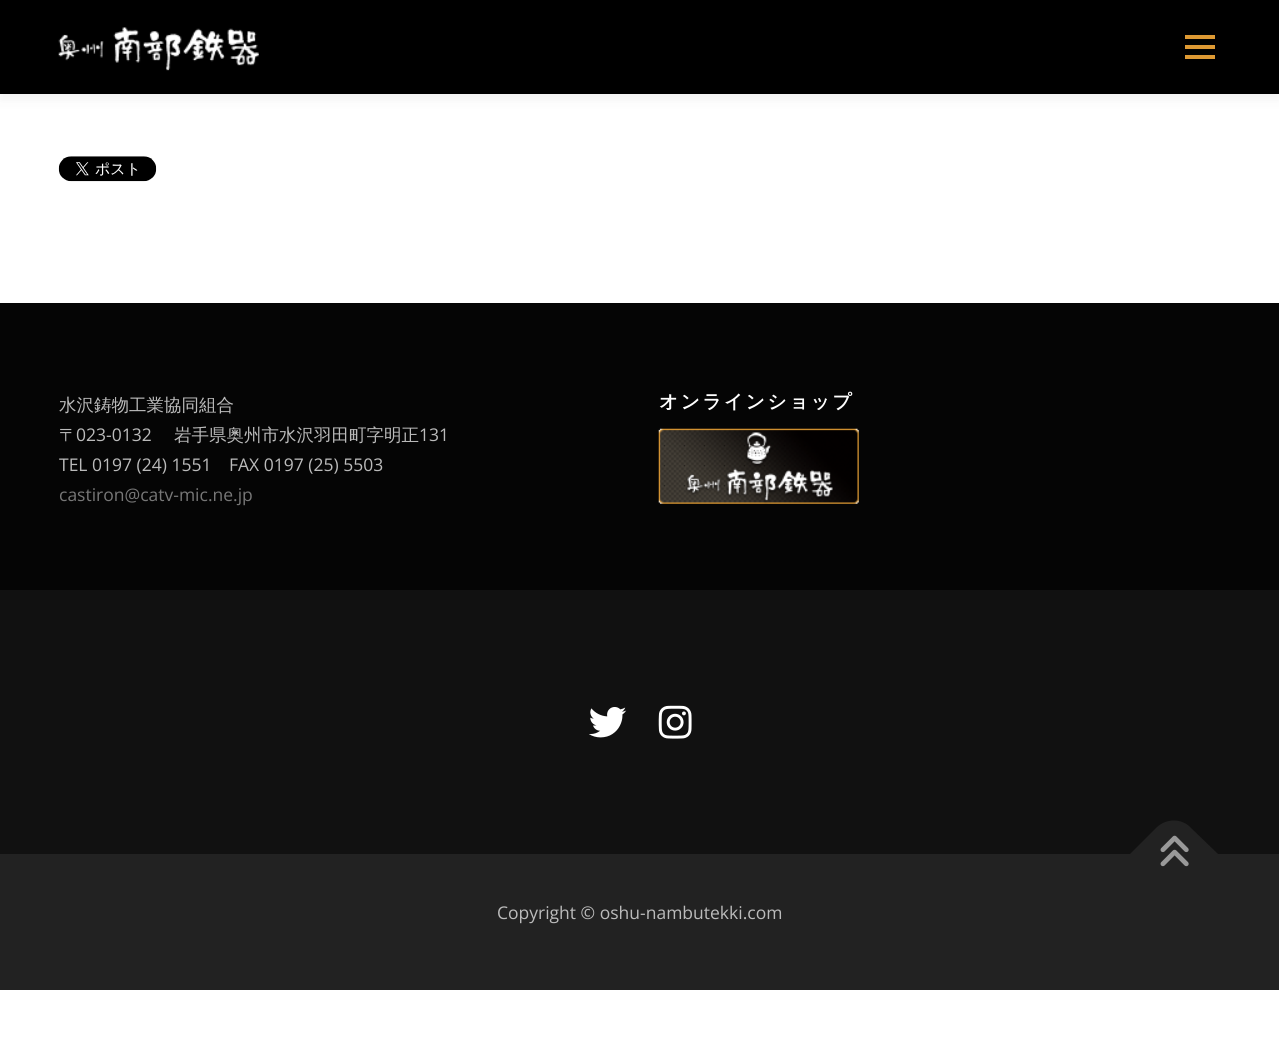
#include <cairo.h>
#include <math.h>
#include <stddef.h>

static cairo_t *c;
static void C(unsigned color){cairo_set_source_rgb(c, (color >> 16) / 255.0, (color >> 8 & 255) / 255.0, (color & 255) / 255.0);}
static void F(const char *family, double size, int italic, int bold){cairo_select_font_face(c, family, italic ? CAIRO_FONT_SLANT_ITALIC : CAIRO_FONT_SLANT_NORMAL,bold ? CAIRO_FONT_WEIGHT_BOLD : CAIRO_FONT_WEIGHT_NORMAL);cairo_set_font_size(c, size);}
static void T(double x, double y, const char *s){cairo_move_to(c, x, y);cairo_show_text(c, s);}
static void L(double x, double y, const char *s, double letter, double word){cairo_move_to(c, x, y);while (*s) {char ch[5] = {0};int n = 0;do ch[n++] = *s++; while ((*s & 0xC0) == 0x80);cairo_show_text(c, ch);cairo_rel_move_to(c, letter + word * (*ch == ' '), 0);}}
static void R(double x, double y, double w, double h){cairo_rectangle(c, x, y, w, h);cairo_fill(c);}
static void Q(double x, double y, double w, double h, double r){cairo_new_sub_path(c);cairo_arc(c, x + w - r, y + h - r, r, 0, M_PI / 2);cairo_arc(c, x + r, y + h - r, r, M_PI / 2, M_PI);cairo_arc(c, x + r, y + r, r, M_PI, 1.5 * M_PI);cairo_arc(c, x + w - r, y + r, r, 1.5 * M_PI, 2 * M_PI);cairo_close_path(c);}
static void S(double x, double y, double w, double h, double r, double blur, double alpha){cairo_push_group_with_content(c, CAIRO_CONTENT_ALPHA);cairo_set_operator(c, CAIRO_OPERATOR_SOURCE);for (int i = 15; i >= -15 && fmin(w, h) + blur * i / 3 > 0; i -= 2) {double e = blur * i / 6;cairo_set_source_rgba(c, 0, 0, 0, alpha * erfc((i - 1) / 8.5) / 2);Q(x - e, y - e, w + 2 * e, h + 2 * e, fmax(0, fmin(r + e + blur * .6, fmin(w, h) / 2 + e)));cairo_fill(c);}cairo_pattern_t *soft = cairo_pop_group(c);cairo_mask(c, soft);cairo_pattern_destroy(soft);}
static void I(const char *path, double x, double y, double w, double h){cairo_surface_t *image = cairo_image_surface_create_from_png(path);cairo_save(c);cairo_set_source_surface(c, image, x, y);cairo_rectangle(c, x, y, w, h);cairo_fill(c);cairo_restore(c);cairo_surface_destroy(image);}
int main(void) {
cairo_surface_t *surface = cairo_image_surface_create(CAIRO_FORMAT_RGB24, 1279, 1044);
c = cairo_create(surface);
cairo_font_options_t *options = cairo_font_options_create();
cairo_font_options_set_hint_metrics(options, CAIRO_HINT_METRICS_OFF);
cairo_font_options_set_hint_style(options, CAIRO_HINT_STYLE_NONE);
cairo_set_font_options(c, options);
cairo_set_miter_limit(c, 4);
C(0xffffff);
cairo_paint(c);
C(0x323232);
S(0,6,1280,94,0,6,.06);
C(0x000000);
R(0,0,1279,94);
I("1.png",58,27,201,44);
C(0xdd9933);
R(1185,45,30,4);
R(1185,35,30,4);
R(1185,55,30,4);
I("2.png",58,156,99,26);
C(0x111111);
R(0,590,1279,264);
C(0x050505);
R(0,303,1279,287);
F("WenQuanYi Zen Hei Medium",17.5,0,0);
C(0xbbbbbb);
T(59,411,"水沢鋳物工業協同組合");
T(59,441,"〒");
F("Open Sans",17.5,0,0);
T(76,441,"023-0132");
F("WenQuanYi Zen Hei Medium",17.5,0,0);
T(174,441,"岩手県奥州市水沢羽田町字明正");
F("Open Sans",17.5,0,0);
T(419,441,"131");
T(59,471,"TEL 0197 (24) 1551");
T(229,471,"FAX 0197 (25) 5503");
C(0x777777);
T(59,501,"castiron@catv-mic.ne.jp");
F("WenQuanYi Zen Hei",18.75,0,1);
C(0xffffff);
L(659,408,"オンラインショップ",2.5,0);
I("3.png",658,428,201,76);
I("4.png",589,707,38,31);
I("5.png",658,705,34,34);
C(0x222222);
R(0,854,1279,136);
cairo_new_path(c);
cairo_move_to(c,1130,854);
cairo_line_to(c,1156,828);
cairo_curve_to(c,1166,818,1182,818,1191,828);
cairo_line_to(c,1218,854);
cairo_line_to(c,1174,898);
cairo_close_path(c);
cairo_fill(c);
I("6.png",1160,835,29,32);
F("Open Sans",17.5,0,0);
C(0xbbbbbb);
T(497,919,"Copyright © oshu-nambutekki.com");
cairo_surface_write_to_png(surface, "o.png");
cairo_font_options_destroy(options);
cairo_destroy(c);
cairo_surface_destroy(surface);
return 0;
}
